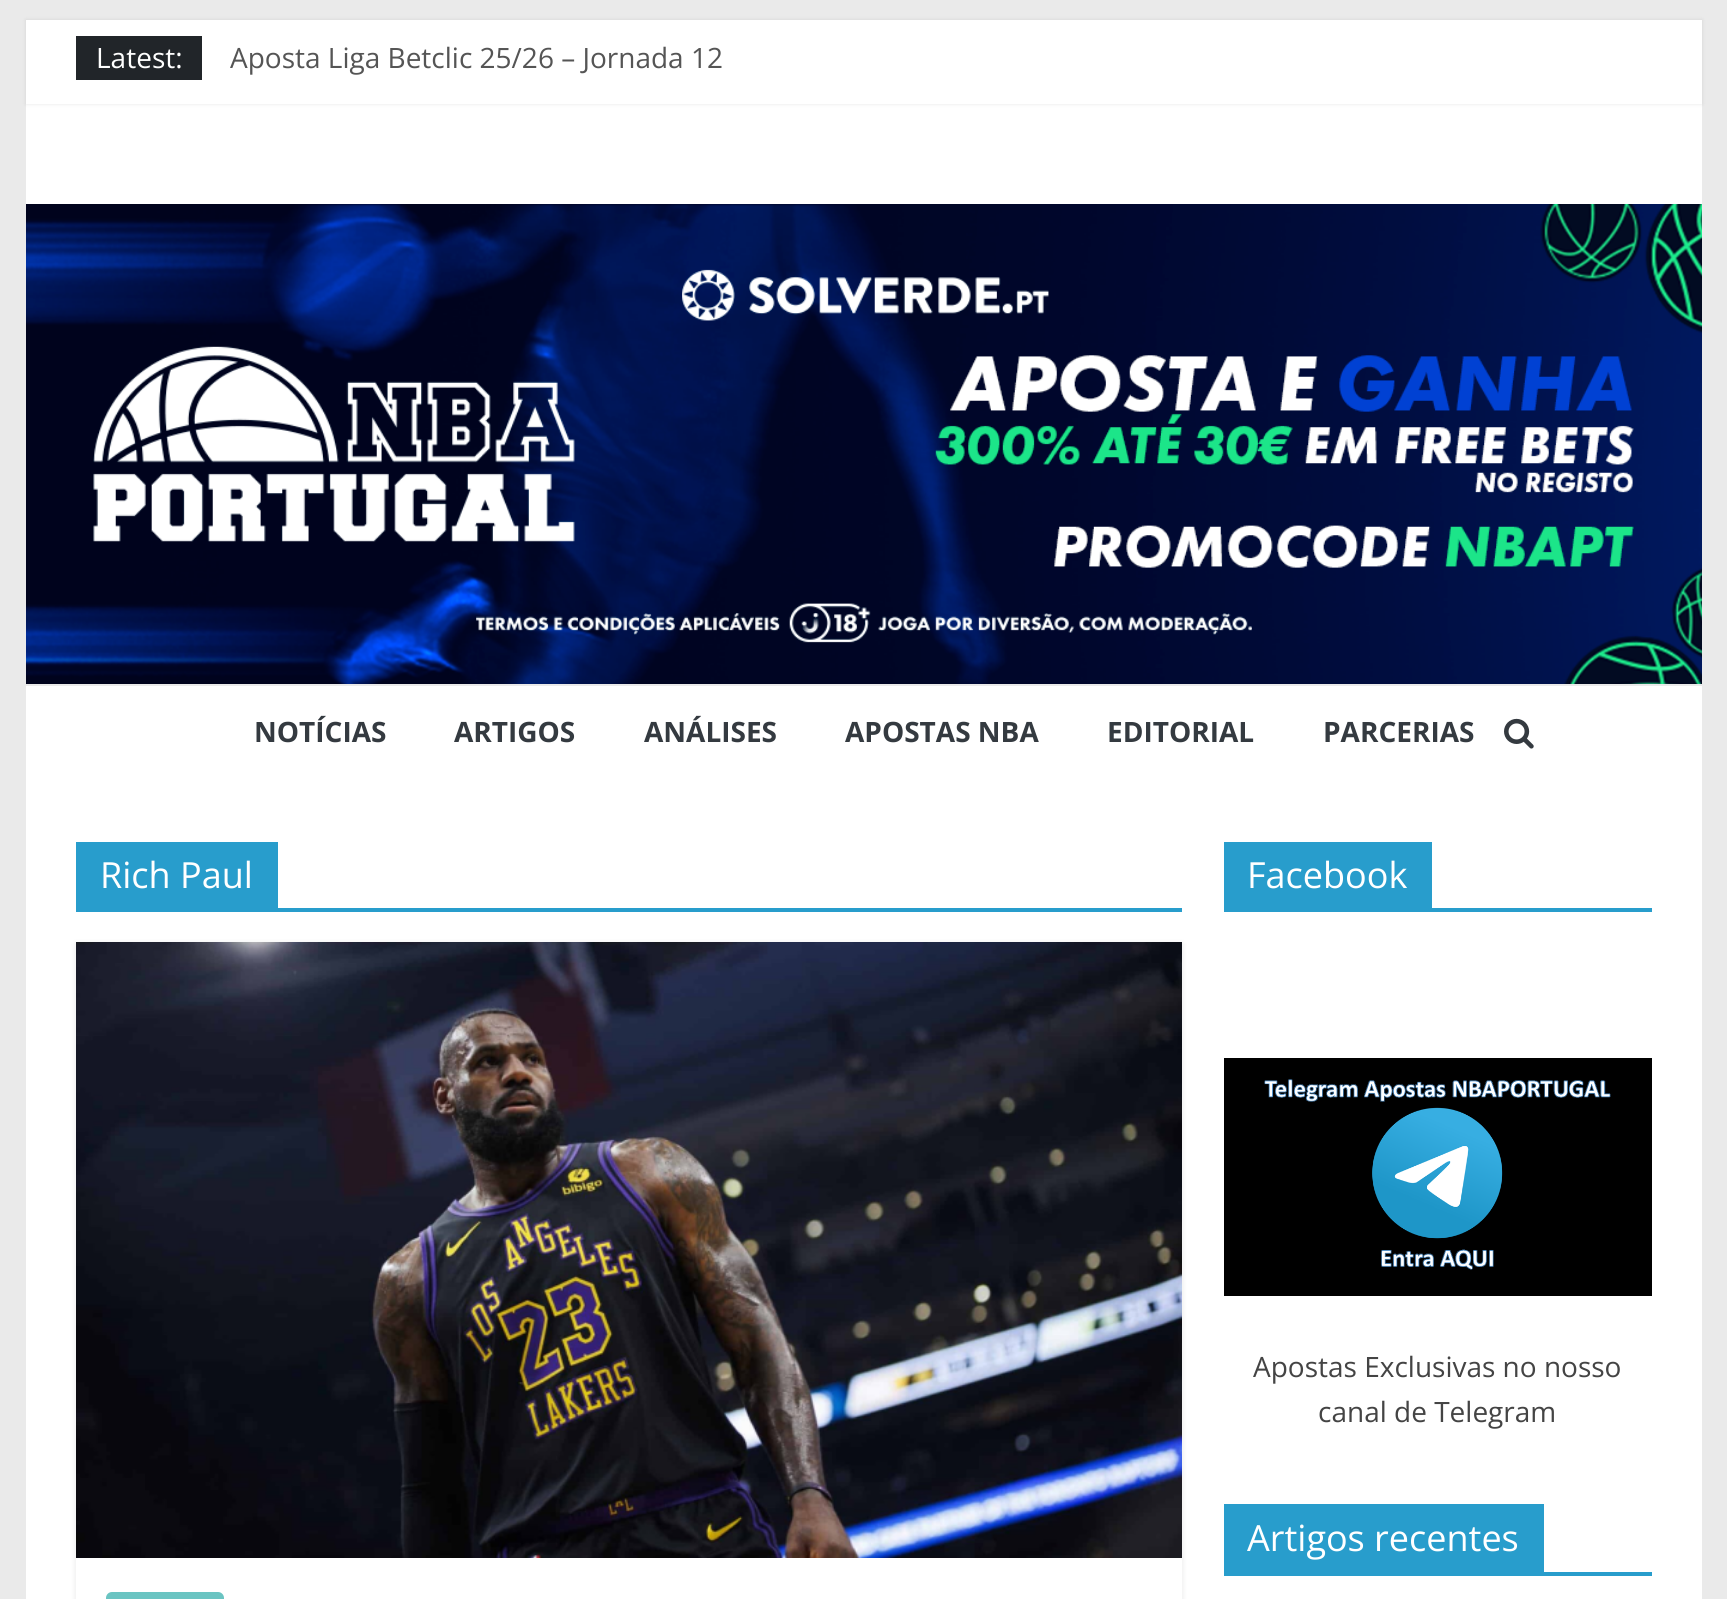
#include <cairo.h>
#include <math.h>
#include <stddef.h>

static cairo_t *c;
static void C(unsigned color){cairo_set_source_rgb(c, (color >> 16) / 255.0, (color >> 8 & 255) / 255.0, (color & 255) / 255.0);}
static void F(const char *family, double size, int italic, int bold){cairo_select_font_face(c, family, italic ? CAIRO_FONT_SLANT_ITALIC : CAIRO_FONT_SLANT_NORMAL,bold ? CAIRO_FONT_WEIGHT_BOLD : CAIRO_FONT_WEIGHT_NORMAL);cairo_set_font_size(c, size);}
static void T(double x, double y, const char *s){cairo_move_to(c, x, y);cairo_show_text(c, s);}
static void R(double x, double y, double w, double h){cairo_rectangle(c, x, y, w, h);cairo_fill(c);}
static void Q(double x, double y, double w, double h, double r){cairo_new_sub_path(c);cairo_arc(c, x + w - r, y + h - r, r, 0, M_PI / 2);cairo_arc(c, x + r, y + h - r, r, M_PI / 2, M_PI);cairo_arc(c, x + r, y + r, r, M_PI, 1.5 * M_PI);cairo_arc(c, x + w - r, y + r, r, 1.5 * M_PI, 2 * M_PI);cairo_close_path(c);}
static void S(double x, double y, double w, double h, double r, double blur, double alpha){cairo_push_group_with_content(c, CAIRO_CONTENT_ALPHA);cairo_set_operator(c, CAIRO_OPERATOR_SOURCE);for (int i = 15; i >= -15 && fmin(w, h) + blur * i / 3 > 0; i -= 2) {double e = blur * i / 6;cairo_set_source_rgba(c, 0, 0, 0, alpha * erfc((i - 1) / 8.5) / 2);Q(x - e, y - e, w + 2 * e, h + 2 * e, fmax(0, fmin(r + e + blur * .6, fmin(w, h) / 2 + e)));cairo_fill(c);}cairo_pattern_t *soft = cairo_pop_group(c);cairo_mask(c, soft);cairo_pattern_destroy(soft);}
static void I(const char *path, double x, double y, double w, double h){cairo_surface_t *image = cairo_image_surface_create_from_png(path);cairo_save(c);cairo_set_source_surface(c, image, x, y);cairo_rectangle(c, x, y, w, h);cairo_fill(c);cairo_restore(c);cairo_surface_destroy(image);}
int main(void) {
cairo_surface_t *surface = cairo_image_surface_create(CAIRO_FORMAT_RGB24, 1727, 1599);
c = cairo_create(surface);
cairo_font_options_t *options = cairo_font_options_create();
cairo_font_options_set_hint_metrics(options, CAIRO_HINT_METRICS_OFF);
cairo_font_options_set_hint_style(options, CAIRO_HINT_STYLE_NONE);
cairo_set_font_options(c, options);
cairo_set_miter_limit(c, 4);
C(0xeaeaea);
cairo_paint(c);
C(0xffffff);
R(26,20,1676,1579);
cairo_save(c);
cairo_set_fill_rule(c,CAIRO_FILL_RULE_EVEN_ODD);
cairo_new_path(c);
cairo_move_to(c,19,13);
cairo_line_to(c,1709,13);
cairo_line_to(c,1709,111);
cairo_line_to(c,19,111);
cairo_close_path(c);
cairo_move_to(c,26,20);
cairo_line_to(c,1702,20);
cairo_line_to(c,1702,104);
cairo_line_to(c,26,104);
cairo_close_path(c);
cairo_clip(c);
C(0x000000);
S(26,20,1676,84,0,2,.1);
cairo_restore(c);
C(0x212529);
R(76,36,126,44);
F("Open Sans",28,0,0);
C(0xffffff);
T(96,68,"Latest:");
C(0x555555);
T(230,68,"Aposta Liga Betclic 25/26 – Jornada 12");
I("1.png",26,204,1676,480);
C(0xeaeaea);
R(26,684,1676,2);
F("Open Sans",28,0,1);
C(0x343a40);
T(254,742,"NOTÍCIAS");
T(454,742,"ARTIGOS");
T(644,742,"ANÁLISES");
T(845,742,"APOSTAS NBA");
T(1107,742,"EDITORIAL");
T(1323,742,"PARCERIAS");
I("2.png",1504,718,30,31);
C(0x289dcc);
R(76,908,1106,4);
R(76,842,202,66);
F("Open Sans",36,0,0);
C(0xffffff);
T(100,888,"Rich Paul");
cairo_save(c);
cairo_set_fill_rule(c,CAIRO_FILL_RULE_EVEN_ODD);
cairo_new_path(c);
cairo_move_to(c,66,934);
cairo_line_to(c,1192,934);
cairo_line_to(c,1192,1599);
cairo_line_to(c,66,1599);
cairo_close_path(c);
cairo_move_to(c,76,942);
cairo_line_to(c,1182,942);
cairo_line_to(c,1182,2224);
cairo_line_to(c,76,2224);
cairo_close_path(c);
cairo_clip(c);
C(0x000000);
S(76,944,1106,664,0,3,.1);
cairo_restore(c);
I("3.png",76,942,1106,616);
C(0x6ac4c2);
Q(106,1592,118,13,6);
cairo_fill(c);
C(0x289dcc);
R(1224,908,428,4);
R(1224,842,208,66);
C(0xffffff);
T(1247,888,"Facebook");
I("4.png",1224,1058,428,238);
F("Open Sans",28,0,0);
C(0x444444);
T(1253,1377,"Apostas Exclusivas no nosso");
T(1318,1422,"canal de Telegram");
C(0x289dcc);
R(1224,1572,428,4);
R(1224,1504,320,68);
F("Open Sans",36,0,0);
C(0xffffff);
T(1247,1551,"Artigos recentes");
cairo_surface_write_to_png(surface, "o.png");
cairo_font_options_destroy(options);
cairo_destroy(c);
cairo_surface_destroy(surface);
return 0;
}
